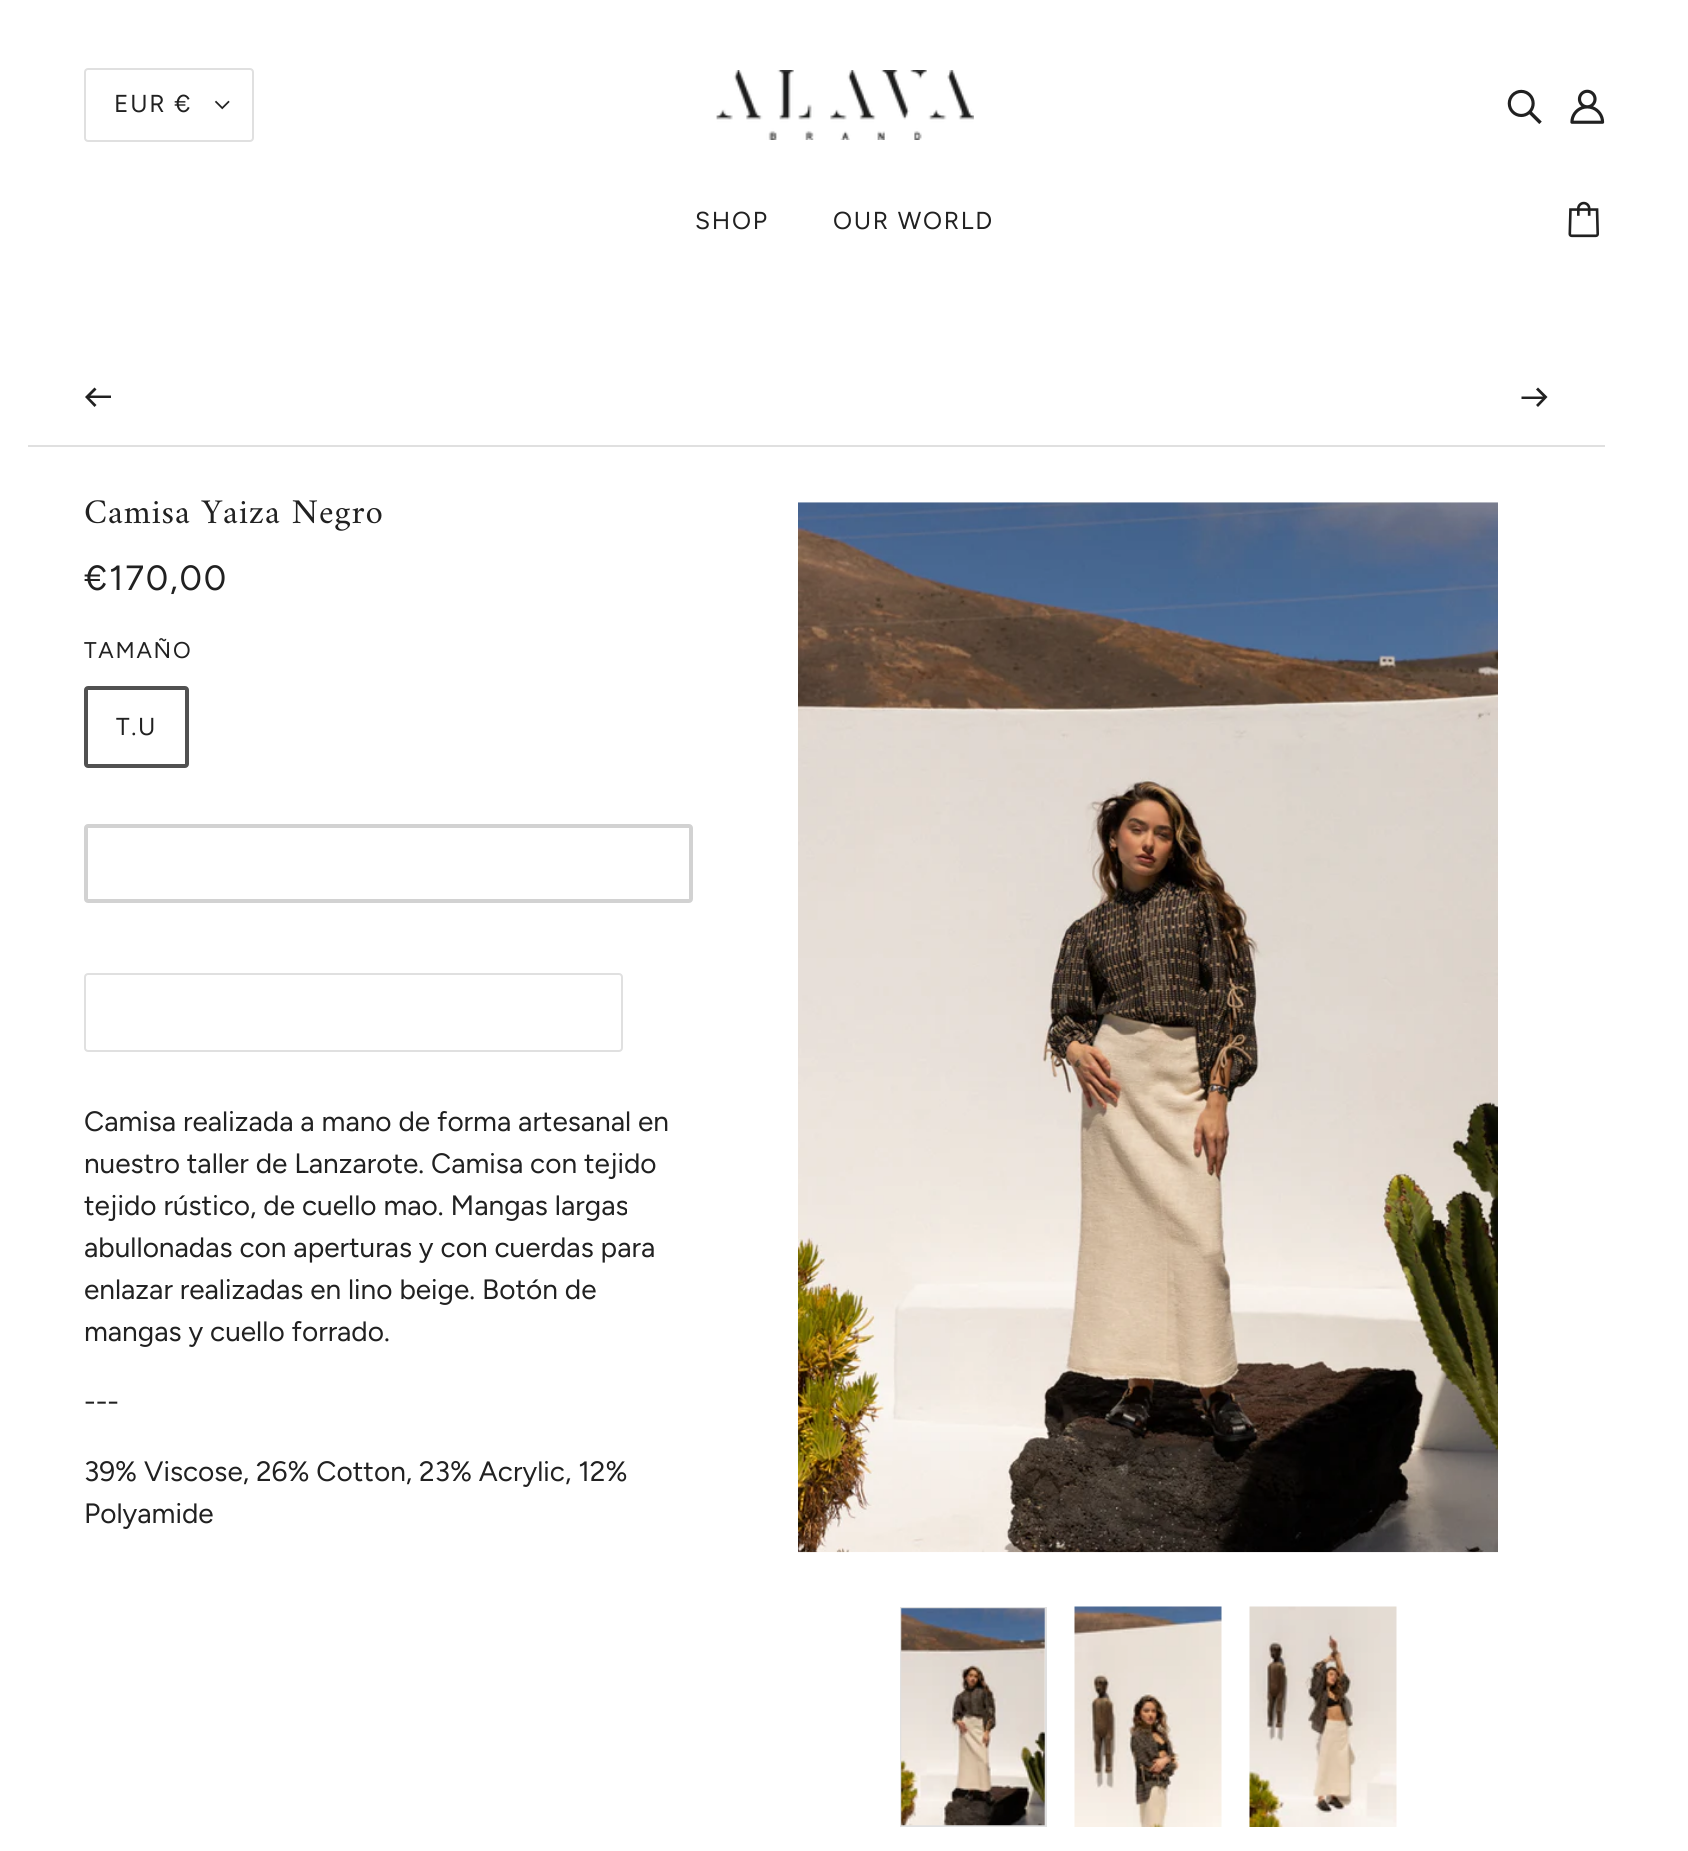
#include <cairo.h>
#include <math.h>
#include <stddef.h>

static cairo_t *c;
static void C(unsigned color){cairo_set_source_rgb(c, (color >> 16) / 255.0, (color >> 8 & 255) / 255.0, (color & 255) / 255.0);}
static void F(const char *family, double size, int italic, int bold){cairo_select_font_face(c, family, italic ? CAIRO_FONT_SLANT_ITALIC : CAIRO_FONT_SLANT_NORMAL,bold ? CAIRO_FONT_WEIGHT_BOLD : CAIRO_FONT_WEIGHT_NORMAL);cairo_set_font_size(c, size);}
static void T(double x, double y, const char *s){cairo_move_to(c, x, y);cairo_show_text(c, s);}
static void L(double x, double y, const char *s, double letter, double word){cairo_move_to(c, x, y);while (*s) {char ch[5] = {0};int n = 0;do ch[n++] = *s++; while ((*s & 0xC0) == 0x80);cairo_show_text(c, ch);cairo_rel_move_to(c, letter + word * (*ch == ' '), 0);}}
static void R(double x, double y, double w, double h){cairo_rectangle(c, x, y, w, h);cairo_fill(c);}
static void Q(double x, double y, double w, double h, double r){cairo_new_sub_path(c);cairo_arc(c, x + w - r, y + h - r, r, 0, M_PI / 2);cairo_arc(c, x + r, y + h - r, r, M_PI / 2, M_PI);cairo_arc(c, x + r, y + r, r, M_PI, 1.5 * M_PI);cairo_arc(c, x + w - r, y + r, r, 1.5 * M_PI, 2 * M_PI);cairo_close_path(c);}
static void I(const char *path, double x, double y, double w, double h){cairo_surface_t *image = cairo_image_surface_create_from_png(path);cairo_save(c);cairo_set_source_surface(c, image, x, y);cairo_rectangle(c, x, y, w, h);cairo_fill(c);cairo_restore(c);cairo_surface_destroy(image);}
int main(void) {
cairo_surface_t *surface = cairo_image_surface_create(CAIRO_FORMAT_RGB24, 1688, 1851);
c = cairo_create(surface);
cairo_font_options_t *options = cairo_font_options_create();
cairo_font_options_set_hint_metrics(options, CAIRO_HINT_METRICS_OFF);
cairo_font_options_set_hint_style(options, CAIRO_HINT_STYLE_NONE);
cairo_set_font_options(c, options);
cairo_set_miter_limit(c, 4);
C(0xffffff);
cairo_paint(c);
Q(85,69,168,72,3);
C(0xe0e0e0);
cairo_stroke(c);
F("Figtree",24.5,0,0);
C(0x212121);
L(114,112,"EUR €",1.75,0);
I("1.png",214,100,16,10);
I("2.png",716,70,258,70);
I("3.png",1507,89,35,35);
I("4.png",1570,89,35,35);
L(695,229,"SHOP",1.75,0);
L(833,229,"OUR WORLD",1.75,0);
I("5.png",1568,201,31,37);
C(0xe0e0e0);
R(28,445,1577,2);
C(0x212121);
cairo_new_path(c);
cairo_move_to(c,90.5,395.5);
cairo_line_to(c,111,395.5);
cairo_line_to(c,111,398);
cairo_line_to(c,89.5,398);
cairo_line_to(c,96.5,405);
cairo_line_to(c,94.5,407);
cairo_line_to(c,85,397);
cairo_line_to(c,94.5,387.5);
cairo_line_to(c,96.5,389.5);
cairo_close_path(c);
cairo_fill(c);
cairo_new_path(c);
cairo_move_to(c,1542,399);
cairo_line_to(c,1521.5,399);
cairo_line_to(c,1521.5,396.5);
cairo_line_to(c,1543,396.5);
cairo_line_to(c,1536,389.5);
cairo_line_to(c,1538,387.5);
cairo_line_to(c,1547.5,397);
cairo_line_to(c,1538,407);
cairo_line_to(c,1536,405);
cairo_close_path(c);
cairo_fill(c);
F("Amiri",35,0,0);
L(84,523,"Camisa Yaiza Negro",.9,0);
I("6.png",798,502,700,1051);
cairo_rectangle(c,901,1608,145,218);
C(0xe0e0e0);
cairo_stroke(c);
I("7.png",901,1608,144,218);
I("8.png",1074,1606,148,221);
I("9.png",1249,1606,148,221);
F("Figtree",35,0,0);
C(0x212121);
L(84,590,"€170,00",1.75,0);
F("Figtree",22.75,0,0);
L(84,658,"TAMAÑO",1.75,0);
Q(86,688,101,78,2);
C(0x515151);
cairo_set_line_width(c,4);
cairo_stroke(c);
F("Figtree",24.5,0,0);
C(0x212121);
L(116,735,"T.U",1.75,0);
Q(86,826,605,75,2);
C(0xd2d2d2);
cairo_stroke(c);
Q(85,974,537,77,3);
C(0xe0e0e0);
cairo_set_line_width(c,2);
cairo_stroke(c);
F("Figtree",28,0,0);
C(0x212121);
T(84,1131,"Camisa realizada a mano de forma artesanal en");
T(84,1173,"nuestro taller de Lanzarote. Camisa con tejido");
T(84,1215,"tejido rústico, de cuello mao. Mangas largas");
T(84,1257,"abullonadas con aperturas y con cuerdas para");
T(84,1299,"enlazar realizadas en lino beige. Botón de");
T(84,1341,"mangas y cuello forrado.");
T(84,1411,"---");
T(84,1481,"39% Viscose, 26% Cotton, 23% Acrylic, 12%");
T(84,1523,"Polyamide");
cairo_surface_write_to_png(surface, "o.png");
cairo_font_options_destroy(options);
cairo_destroy(c);
cairo_surface_destroy(surface);
return 0;
}
